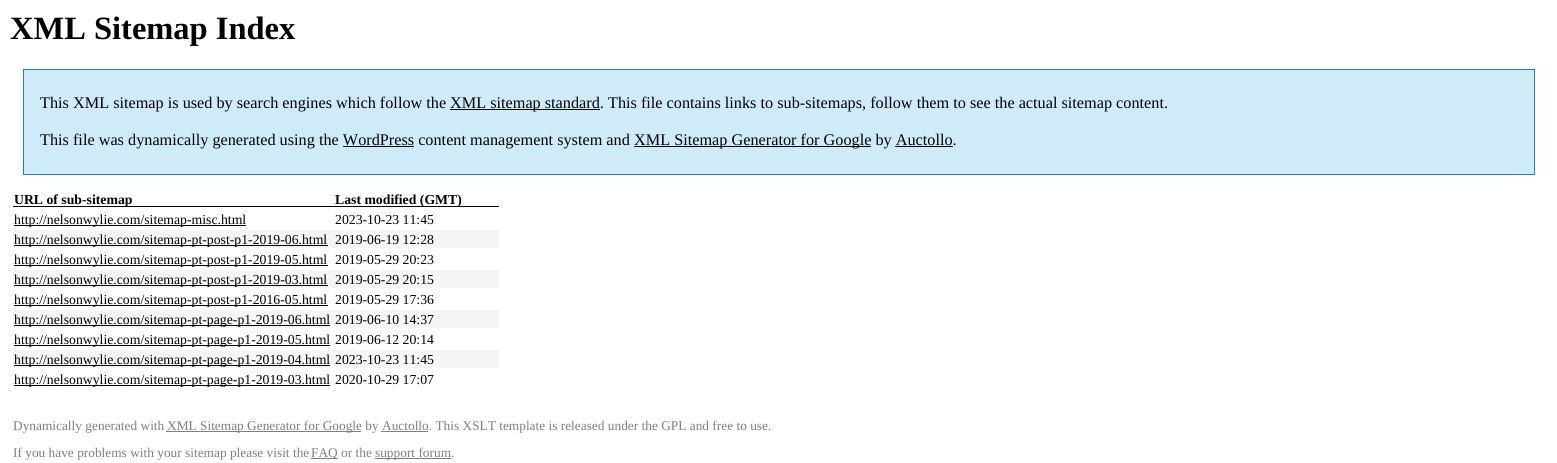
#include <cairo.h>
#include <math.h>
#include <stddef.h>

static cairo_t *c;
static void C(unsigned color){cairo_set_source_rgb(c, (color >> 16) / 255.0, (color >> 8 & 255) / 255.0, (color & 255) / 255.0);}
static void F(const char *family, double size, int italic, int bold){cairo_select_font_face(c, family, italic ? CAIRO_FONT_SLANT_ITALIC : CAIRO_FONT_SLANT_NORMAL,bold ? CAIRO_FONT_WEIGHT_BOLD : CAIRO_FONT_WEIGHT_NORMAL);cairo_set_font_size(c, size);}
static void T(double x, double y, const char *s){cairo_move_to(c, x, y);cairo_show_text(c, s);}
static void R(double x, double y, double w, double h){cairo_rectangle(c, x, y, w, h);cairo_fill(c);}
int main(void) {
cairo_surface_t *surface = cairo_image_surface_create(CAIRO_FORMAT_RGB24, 1557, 463);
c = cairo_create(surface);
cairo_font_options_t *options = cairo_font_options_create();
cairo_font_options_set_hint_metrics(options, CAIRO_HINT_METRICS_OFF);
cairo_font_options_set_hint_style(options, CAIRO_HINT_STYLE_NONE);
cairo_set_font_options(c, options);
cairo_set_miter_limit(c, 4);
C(0xffffff);
cairo_paint(c);
F("Liberation Serif",32.5,0,1);
C(0x000000);
T(10,39,"XML Sitemap Index");
C(0xcfebf7);
cairo_rectangle(c,23.5,69.5,1511,105);
cairo_fill_preserve(c);
C(0x2580b2);
cairo_set_line_width(c,1);
cairo_stroke(c);
F("Liberation Serif",16.25,0,0);
C(0x000000);
T(40,108,"This XML sitemap is used by search engines which follow the");
R(450,109,150,1);
T(450,108,"XML sitemap standard. This file contains links to sub-sitemaps, follow them to see the actual sitemap content.");
T(40,145,"This file was dynamically generated using the WordPress content management system and");
R(634,146,237,1);
T(634,145,"XML Sitemap Generator for Google by Auctollo.");
R(343,146,71,1);
R(895,146,58,1);
R(13,206,486,1);
F("Liberation Serif",13.75,0,1);
T(14,204,"URL of sub-sitemap");
T(335,204,"Last modified (GMT)");
R(14,225,232,1);
F("Liberation Serif",13.75,0,0);
T(14,224,"http://nelsonwylie.com/sitemap-misc.html");
T(335,224,"2023-10-23 11:45");
C(0xf5f5f5);
R(13,230,486,18);
C(0x000000);
R(14,245,314,1);
T(14,244,"http://nelsonwylie.com/sitemap-pt-post-p1-2019-06.html");
T(335,244,"2019-06-19 12:28");
R(14,265,314,1);
T(14,264,"http://nelsonwylie.com/sitemap-pt-post-p1-2019-05.html");
T(335,264,"2019-05-29 20:23");
C(0xf5f5f5);
R(13,270,486,18);
C(0x000000);
R(14,285,314,1);
T(14,284,"http://nelsonwylie.com/sitemap-pt-post-p1-2019-03.html");
T(335,284,"2019-05-29 20:15");
R(14,305,314,1);
T(14,304,"http://nelsonwylie.com/sitemap-pt-post-p1-2016-05.html");
T(335,304,"2019-05-29 17:36");
C(0xf5f5f5);
R(13,310,486,18);
C(0x000000);
R(14,325,316,1);
T(14,324,"http://nelsonwylie.com/sitemap-pt-page-p1-2019-06.html");
T(335,324,"2019-06-10 14:37");
R(14,345,316,1);
T(14,344,"http://nelsonwylie.com/sitemap-pt-page-p1-2019-05.html");
T(335,344,"2019-06-12 20:14");
C(0xf5f5f5);
R(13,350,486,18);
C(0x000000);
R(14,365,316,1);
T(14,364,"http://nelsonwylie.com/sitemap-pt-page-p1-2019-04.html");
T(335,364,"2023-10-23 11:45");
R(14,385,316,1);
T(14,384,"http://nelsonwylie.com/sitemap-pt-page-p1-2019-03.html");
T(335,384,"2020-10-29 17:07");
F("Liberation Serif",13.35,0,0);
C(0x808080);
T(13,430,"Dynamically generated with");
R(166,431,195,1);
T(167,430,"XML Sitemap Generator for Google by Auctollo. This XSLT template is released under the GPL and free to use.");
R(381,431,47,1);
T(13,457,"If you have problems with your sitemap please visit the");
R(311,458,27,1);
T(311,457,"FAQ or the");
R(375,458,76,1);
T(375,457,"support forum.");
cairo_surface_write_to_png(surface, "o.png");
cairo_font_options_destroy(options);
cairo_destroy(c);
cairo_surface_destroy(surface);
return 0;
}
